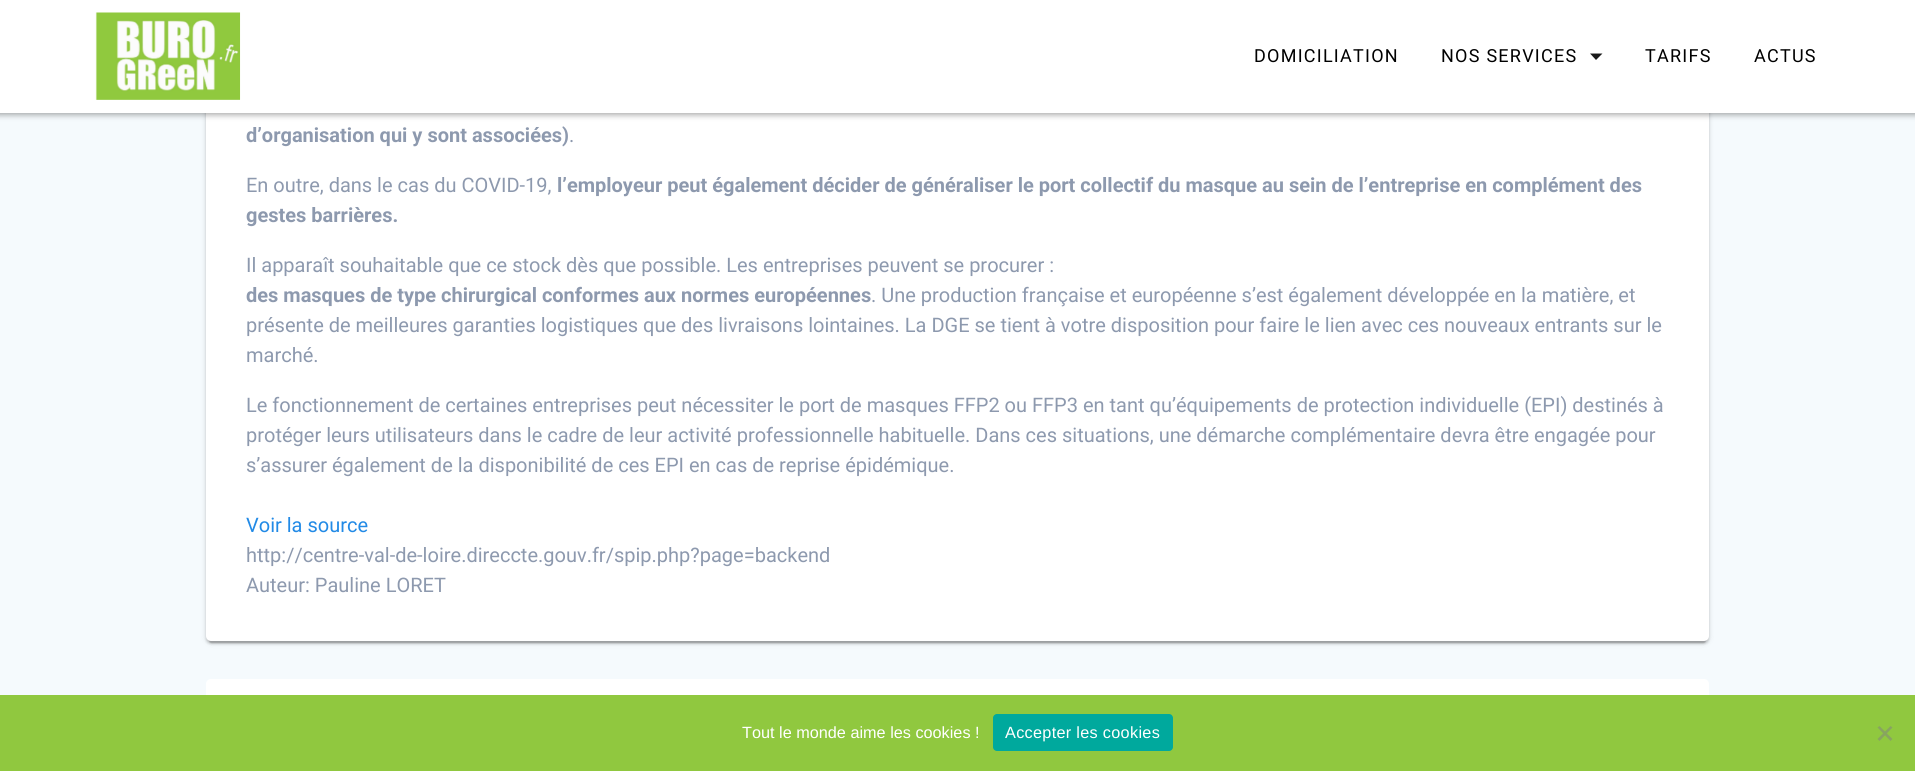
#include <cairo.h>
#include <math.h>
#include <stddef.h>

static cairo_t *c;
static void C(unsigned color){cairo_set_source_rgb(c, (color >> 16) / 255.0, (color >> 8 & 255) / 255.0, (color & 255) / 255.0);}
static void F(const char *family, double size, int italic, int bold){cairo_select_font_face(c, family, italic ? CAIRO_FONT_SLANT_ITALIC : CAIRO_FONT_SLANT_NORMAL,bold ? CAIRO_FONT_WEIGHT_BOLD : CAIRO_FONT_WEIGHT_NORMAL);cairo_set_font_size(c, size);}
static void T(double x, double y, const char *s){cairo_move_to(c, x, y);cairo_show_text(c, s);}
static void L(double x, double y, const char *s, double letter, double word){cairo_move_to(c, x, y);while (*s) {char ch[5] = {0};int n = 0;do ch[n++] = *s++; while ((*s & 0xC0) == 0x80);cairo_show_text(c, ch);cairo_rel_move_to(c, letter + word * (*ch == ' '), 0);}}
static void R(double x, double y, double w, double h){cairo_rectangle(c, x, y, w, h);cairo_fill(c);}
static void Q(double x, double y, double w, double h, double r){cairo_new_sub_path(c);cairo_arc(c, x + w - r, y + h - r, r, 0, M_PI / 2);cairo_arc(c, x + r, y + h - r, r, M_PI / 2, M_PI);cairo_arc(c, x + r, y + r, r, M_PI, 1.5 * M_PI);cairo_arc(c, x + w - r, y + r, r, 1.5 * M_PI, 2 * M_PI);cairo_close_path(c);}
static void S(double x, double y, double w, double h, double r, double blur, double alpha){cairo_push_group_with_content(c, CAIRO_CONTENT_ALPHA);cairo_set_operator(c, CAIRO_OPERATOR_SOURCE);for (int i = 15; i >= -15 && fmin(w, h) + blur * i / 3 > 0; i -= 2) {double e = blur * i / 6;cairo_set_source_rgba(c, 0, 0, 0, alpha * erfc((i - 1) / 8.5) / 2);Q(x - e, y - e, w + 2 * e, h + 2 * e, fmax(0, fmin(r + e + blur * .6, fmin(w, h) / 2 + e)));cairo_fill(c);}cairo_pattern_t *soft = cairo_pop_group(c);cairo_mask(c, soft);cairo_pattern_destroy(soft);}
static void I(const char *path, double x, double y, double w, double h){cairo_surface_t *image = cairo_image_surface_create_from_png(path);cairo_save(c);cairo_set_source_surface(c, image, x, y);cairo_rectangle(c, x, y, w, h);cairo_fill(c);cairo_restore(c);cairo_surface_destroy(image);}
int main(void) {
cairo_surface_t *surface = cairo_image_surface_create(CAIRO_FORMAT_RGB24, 1915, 771);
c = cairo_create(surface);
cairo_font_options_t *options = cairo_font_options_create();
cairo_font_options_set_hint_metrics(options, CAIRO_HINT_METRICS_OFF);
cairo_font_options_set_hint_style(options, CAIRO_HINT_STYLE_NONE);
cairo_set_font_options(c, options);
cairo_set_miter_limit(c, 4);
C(0xf5fafd);
cairo_paint(c);
C(0x000000);
S(206,-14,1503,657,5,3,.12);
S(206,-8,1503,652,5,1,.14);
S(209,-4,1497,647,2.5,.5,.2);
C(0xffffff);
Q(206,-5,1503,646,5);
cairo_fill(c);
C(0x000000);
S(-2,-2,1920,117,0,3,.33);
C(0xffffff);
R(0,0,1915,113);
I("1.png",95,12,146,88);
F("Roboto",18,0,0);
C(0x000000);
L(1254,62,"DOMICILIATION",1.25,0);
L(1441,62,"NOS SERVICES",1.25,0);
C(0x1a1a1a);
cairo_new_path(c);
cairo_move_to(c,1590,53.5);
cairo_line_to(c,1596,60);
cairo_line_to(c,1602.5,53.5);
cairo_close_path(c);
cairo_fill(c);
C(0x000000);
L(1645,62,"TARIFS",1.25,0);
L(1754,62,"ACTUS",1.25,0);
F("Roboto",20,0,1);
C(0x8d99ae);
T(246,142,"d’organisation qui y sont associées)");
F("Roboto",20,0,0);
T(569,142,".");
T(246,192,"En outre, dans le cas du COVID-19,");
F("Roboto",20,0,1);
T(557,192,"l’employeur peut également décider de généraliser le port collectif du masque au sein de l’entreprise en complément des");
T(246,222,"gestes barrières.");
F("Roboto",20,0,0);
T(246,272,"Il apparaît souhaitable que ce stock dès que possible. Les entreprises peuvent se procurer :");
F("Roboto",20,0,1);
T(246,302,"des masques de type chirurgical conformes aux normes européennes");
F("Roboto",20,0,0);
T(871,302,". Une production française et européenne s’est également développée en la matière, et");
T(246,332,"présente de meilleures garanties logistiques que des livraisons lointaines. La DGE se tient à votre disposition pour faire le lien avec ces nouveaux entrants sur le");
T(246,362,"marché.");
T(246,412,"Le fonctionnement de certaines entreprises peut nécessiter le port de masques FFP2 ou FFP3 en tant qu’équipements de protection individuelle (EPI) destinés à");
T(246,442,"protéger leurs utilisateurs dans le cadre de leur activité professionnelle habituelle. Dans ces situations, une démarche complémentaire devra être engagée pour");
T(246,472,"s’assurer également de la disponibilité de ces EPI en cas de reprise épidémique.");
C(0x228ae6);
T(246,532,"Voir la source");
C(0x8d99ae);
T(246,562,"http://centre-val-de-loire.direccte.gouv.fr/spip.php?page=backend");
T(246,592,"Auteur: Pauline LORET");
C(0xffffff);
Q(206,679,1503,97,5);
cairo_fill(c);
C(0x90c83f);
R(0,695,1915,76);
F("Liberation Sans",16.25,0,0);
C(0xffffff);
T(742,738,"Tout le monde aime les cookies !");
C(0x00a99d);
Q(993,714,180,37,4);
cairo_fill(c);
C(0xffffff);
L(1005,738,"Accepter les cookies",.3,0);
C(0x88a460);
cairo_new_path(c);
cairo_move_to(c,1890.5,726);
cairo_line_to(c,1892.5,727.5);
cairo_line_to(c,1879.5,741);
cairo_line_to(c,1877.5,739);
cairo_close_path(c);
cairo_fill(c);
cairo_new_path(c);
cairo_move_to(c,1877.5,727.5);
cairo_line_to(c,1879.5,726);
cairo_line_to(c,1892.5,739);
cairo_line_to(c,1890.5,741);
cairo_close_path(c);
cairo_fill(c);
cairo_surface_write_to_png(surface, "o.png");
cairo_font_options_destroy(options);
cairo_destroy(c);
cairo_surface_destroy(surface);
return 0;
}
